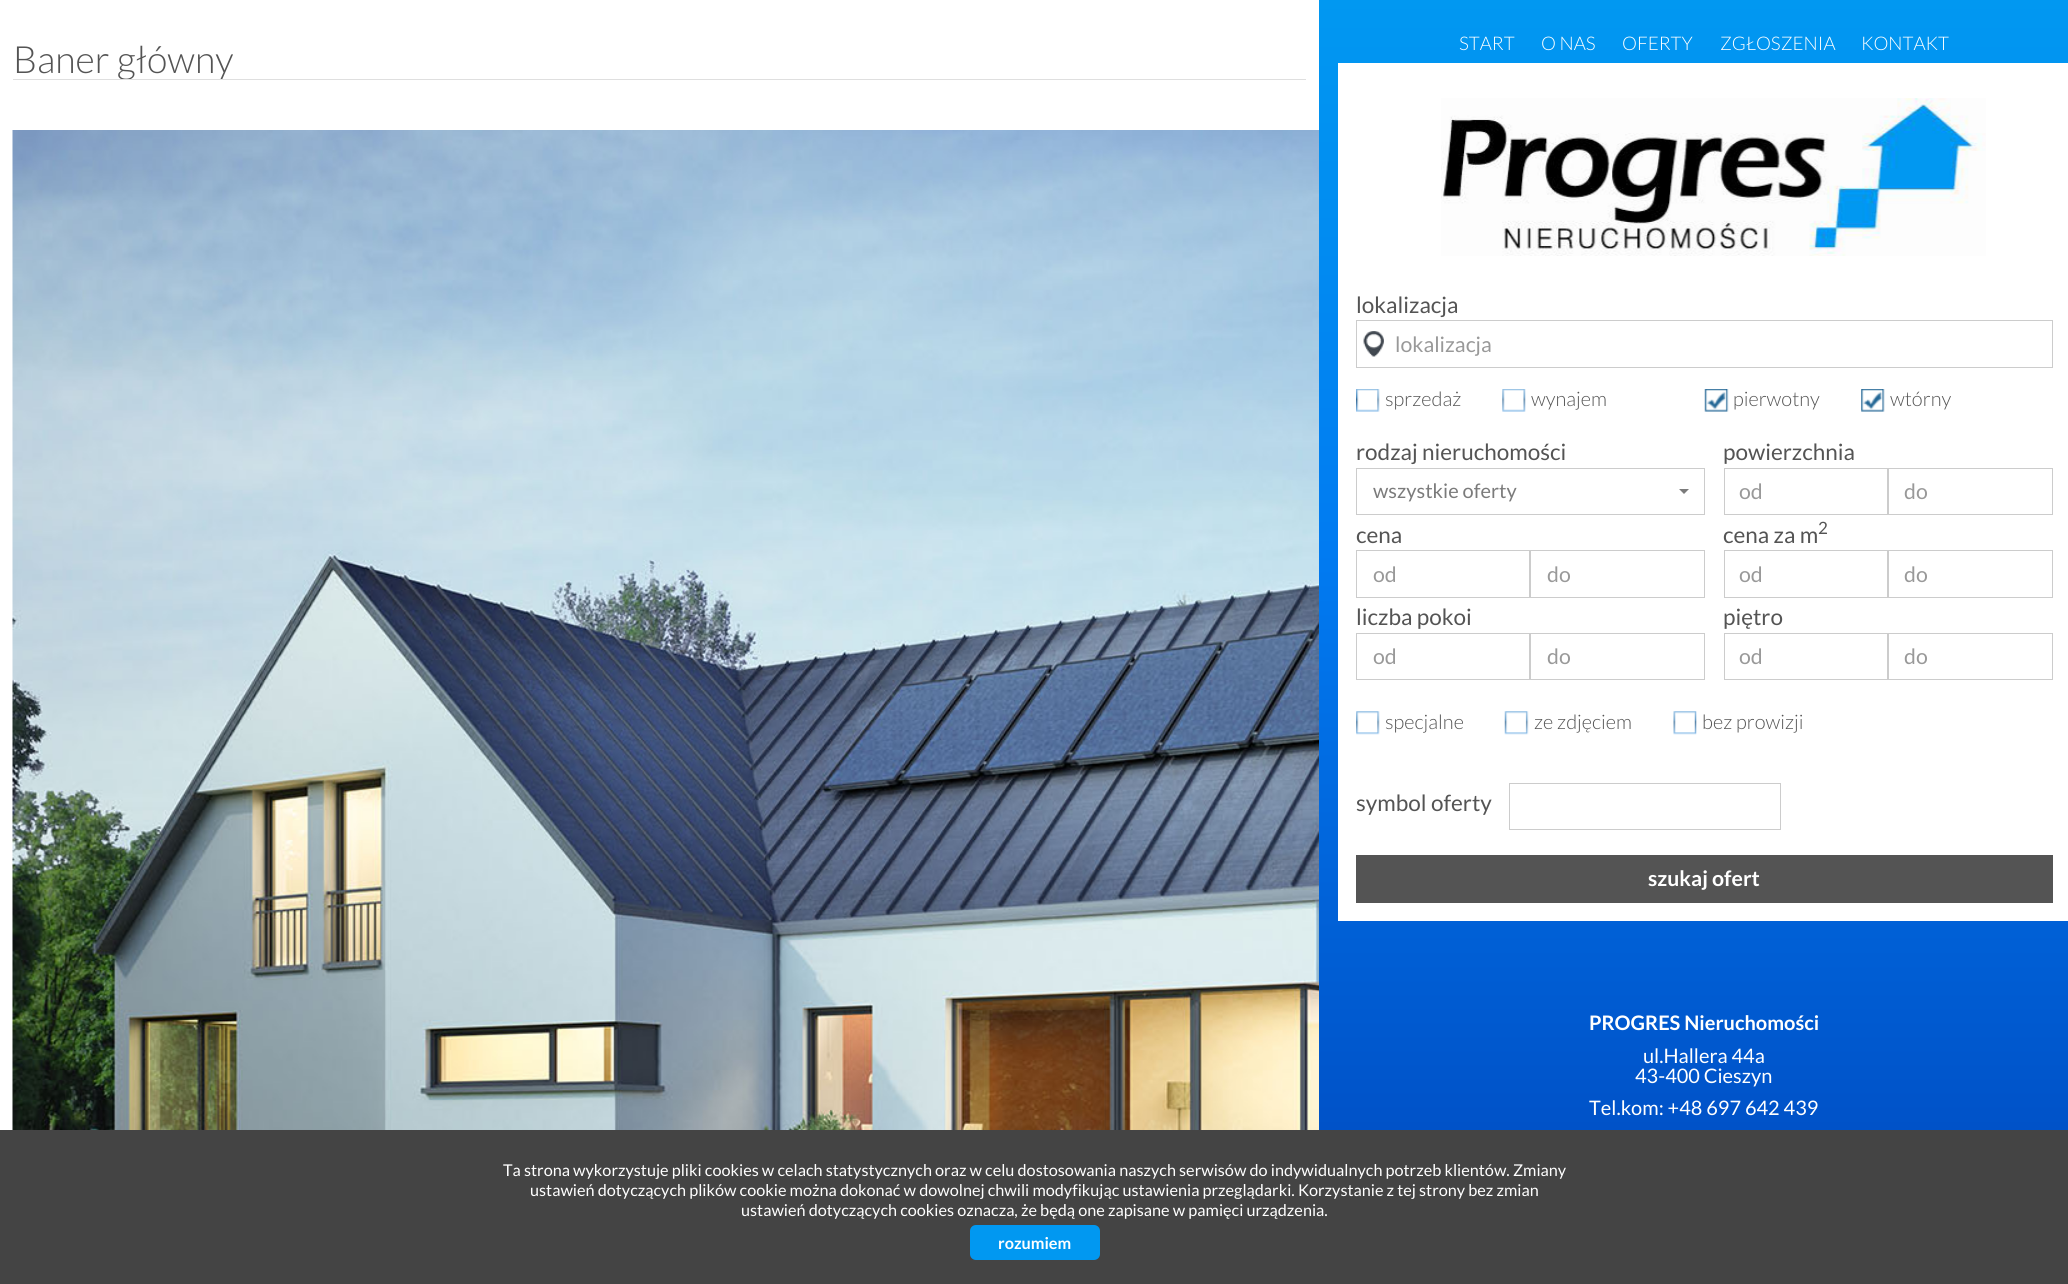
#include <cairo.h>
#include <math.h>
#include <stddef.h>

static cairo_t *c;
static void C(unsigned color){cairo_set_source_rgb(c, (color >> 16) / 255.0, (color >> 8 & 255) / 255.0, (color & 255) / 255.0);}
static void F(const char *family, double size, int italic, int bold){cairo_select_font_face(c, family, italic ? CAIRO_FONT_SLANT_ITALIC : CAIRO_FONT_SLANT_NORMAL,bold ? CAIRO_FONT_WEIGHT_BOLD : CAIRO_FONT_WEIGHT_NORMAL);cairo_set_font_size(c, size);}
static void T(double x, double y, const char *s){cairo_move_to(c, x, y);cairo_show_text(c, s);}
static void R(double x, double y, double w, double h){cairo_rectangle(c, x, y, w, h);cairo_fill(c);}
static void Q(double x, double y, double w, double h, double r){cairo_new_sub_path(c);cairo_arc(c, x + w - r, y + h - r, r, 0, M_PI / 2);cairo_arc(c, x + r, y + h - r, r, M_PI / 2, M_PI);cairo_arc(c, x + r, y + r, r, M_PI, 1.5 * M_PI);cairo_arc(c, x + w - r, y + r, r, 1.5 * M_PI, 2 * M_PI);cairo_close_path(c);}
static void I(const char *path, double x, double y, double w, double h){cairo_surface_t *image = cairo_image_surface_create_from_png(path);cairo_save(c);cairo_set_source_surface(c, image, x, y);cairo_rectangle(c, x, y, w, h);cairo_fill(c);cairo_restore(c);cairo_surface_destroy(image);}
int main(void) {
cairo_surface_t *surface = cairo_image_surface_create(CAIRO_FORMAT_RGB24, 2068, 1284);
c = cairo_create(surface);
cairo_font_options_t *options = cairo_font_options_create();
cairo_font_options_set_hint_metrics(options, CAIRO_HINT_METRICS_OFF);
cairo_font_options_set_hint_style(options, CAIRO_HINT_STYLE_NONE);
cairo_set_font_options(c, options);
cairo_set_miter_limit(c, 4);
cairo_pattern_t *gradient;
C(0xffffff);
cairo_paint(c);
C(0xdfdfdf);
R(13,79,1293,1);
cairo_save(c);
cairo_rectangle(c,13,38,1293,41);
cairo_clip(c);
F("Lato Light",37.5,0,0);
C(0x545454);
T(13,73,"Baner główny");
cairo_restore(c);
I("1.png",12,130,1307,1000);
gradient = cairo_pattern_create_linear(1704,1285,1704,0);
cairo_pattern_add_color_stop_rgba(gradient,0,0,0.278,0.741,1);
cairo_pattern_add_color_stop_rgba(gradient,.57,0.004,0.482,0.945,1);
cairo_pattern_add_color_stop_rgba(gradient,1,0.004,0.596,0.945,1);
cairo_set_source(c,gradient);
cairo_pattern_destroy(gradient);
R(1319,0,749,1130);
F("Lato Light",18.75,0,0);
C(0xffffff);
T(1459,50,"START");
T(1541,50,"O NAS");
T(1622,50,"OFERTY");
T(1720,50,"ZGŁOSZENIA");
T(1861,50,"KONTAKT");
R(1338,63,730,858);
I("2.png",1441,98,545,158);
F("Lato",22.5,0,0);
C(0x545454);
T(1356,313,"lokalizacja");
I("3.png",1363,331,21,26);
I("4.png",1363,331,21,26);
cairo_rectangle(c,1356.5,320.5,696,47);
C(0xcccccc);
cairo_set_line_width(c,1);
cairo_stroke(c);
F("Lato",21.25,0,0);
C(0x999999);
T(1395,352,"lokalizacja");
I("5.png",1356,389,24,23);
F("Lato Light",20,0,0);
C(0x545454);
T(1385,406,"sprzedaż");
I("6.png",1502,389,24,23);
T(1531,406,"wynajem");
I("7.png",1704,389,25,23);
T(1733,406,"pierwotny");
I("8.png",1861,389,24,23);
T(1890,406,"wtórny");
F("Lato",22.5,0,0);
T(1356,460,"rodzaj nieruchomości");
cairo_rectangle(c,1356.5,468.5,348,46);
C(0xcccccc);
cairo_stroke(c);
F("Lato",20,0,0);
C(0x7b7b7b);
T(1373,498,"wszystkie oferty");
cairo_new_path(c);
cairo_move_to(c,1679,489);
cairo_line_to(c,1689,489);
cairo_line_to(c,1684,494);
cairo_close_path(c);
cairo_fill(c);
F("Lato",22.5,0,0);
C(0x545454);
T(1723,460,"powierzchnia");
cairo_rectangle(c,1724.5,468.5,163,46);
C(0xcccccc);
cairo_stroke(c);
F("Lato",21.25,0,0);
C(0x999999);
T(1739,499,"od");
cairo_rectangle(c,1888.5,468.5,164,46);
C(0xcccccc);
cairo_stroke(c);
C(0x999999);
T(1904,499,"do");
F("Lato",22.5,0,0);
C(0x545454);
T(1356,543,"cena");
cairo_rectangle(c,1356.5,550.5,173,47);
C(0xcccccc);
cairo_stroke(c);
F("Lato",21.25,0,0);
C(0x999999);
T(1373,582,"od");
cairo_rectangle(c,1530.5,550.5,174,47);
C(0xcccccc);
cairo_stroke(c);
C(0x999999);
T(1547,582,"do");
F("Lato",17,0,0);
C(0x545454);
T(1818,534,"2");
F("Lato",22.5,0,0);
T(1723,543,"cena za m");
cairo_rectangle(c,1724.5,550.5,163,47);
C(0xcccccc);
cairo_stroke(c);
F("Lato",21.25,0,0);
C(0x999999);
T(1739,582,"od");
cairo_rectangle(c,1888.5,550.5,164,47);
C(0xcccccc);
cairo_stroke(c);
C(0x999999);
T(1904,582,"do");
F("Lato",22.5,0,0);
C(0x545454);
T(1356,625,"liczba pokoi");
cairo_rectangle(c,1356.5,633.5,173,46);
C(0xcccccc);
cairo_stroke(c);
F("Lato",21.25,0,0);
C(0x999999);
T(1373,664,"od");
cairo_rectangle(c,1530.5,633.5,174,46);
C(0xcccccc);
cairo_stroke(c);
C(0x999999);
T(1547,664,"do");
F("Lato",22.5,0,0);
C(0x545454);
T(1723,625,"piętro");
cairo_rectangle(c,1724.5,633.5,163,46);
C(0xcccccc);
cairo_stroke(c);
F("Lato",21.25,0,0);
C(0x999999);
T(1739,664,"od");
cairo_rectangle(c,1888.5,633.5,164,46);
C(0xcccccc);
cairo_stroke(c);
C(0x999999);
T(1904,664,"do");
I("9.png",1356,711,24,24);
F("Lato Light",20,0,0);
C(0x545454);
T(1385,729,"specjalne");
I("10.png",1504,711,25,24);
T(1534,729,"ze zdjęciem");
I("11.png",1673,711,24,24);
T(1702,729,"bez prowizji");
F("Lato",22.5,0,0);
T(1356,811,"symbol oferty");
cairo_rectangle(c,1509.5,783.5,271,46);
C(0xcccccc);
cairo_stroke(c);
C(0x545454);
R(1356,855,697,48);
F("Lato",21.25,0,1);
C(0xffffff);
T(1648,886,"szukaj ofert");
F("Lato",20,0,1);
T(1589,1030,"PROGRES Nieruchomości");
F("Lato",20,0,0);
T(1643,1063,"ul.Hallera 44a");
T(1635,1083,"43-400 Cieszyn");
T(1589,1115,"Tel.kom: +48 697 642 439");
C(0x444444);
R(0,1130,2068,154);
F("Lato",16.25,0,0);
C(0xffffff);
T(503,1176,"Ta strona wykorzystuje pliki cookies w celach statystycznych oraz w celu dostosowania naszych serwisów do indywidualnych potrzeb klientów. Zmiany");
T(530,1196,"ustawień dotyczących plików cookie można dokonać w dowolnej chwili modyfikując ustawienia przeglądarki. Korzystanie z tej strony bez zmian");
T(741,1216,"ustawień dotyczących cookies oznacza, że będą one zapisane w pamięci urządzenia.");
C(0x0198f1);
Q(970,1225,130,35,6);
cairo_fill(c);
F("Lato",16.25,0,1);
C(0xffffff);
T(998,1249,"rozumiem");
cairo_surface_write_to_png(surface, "o.png");
cairo_font_options_destroy(options);
cairo_destroy(c);
cairo_surface_destroy(surface);
return 0;
}
